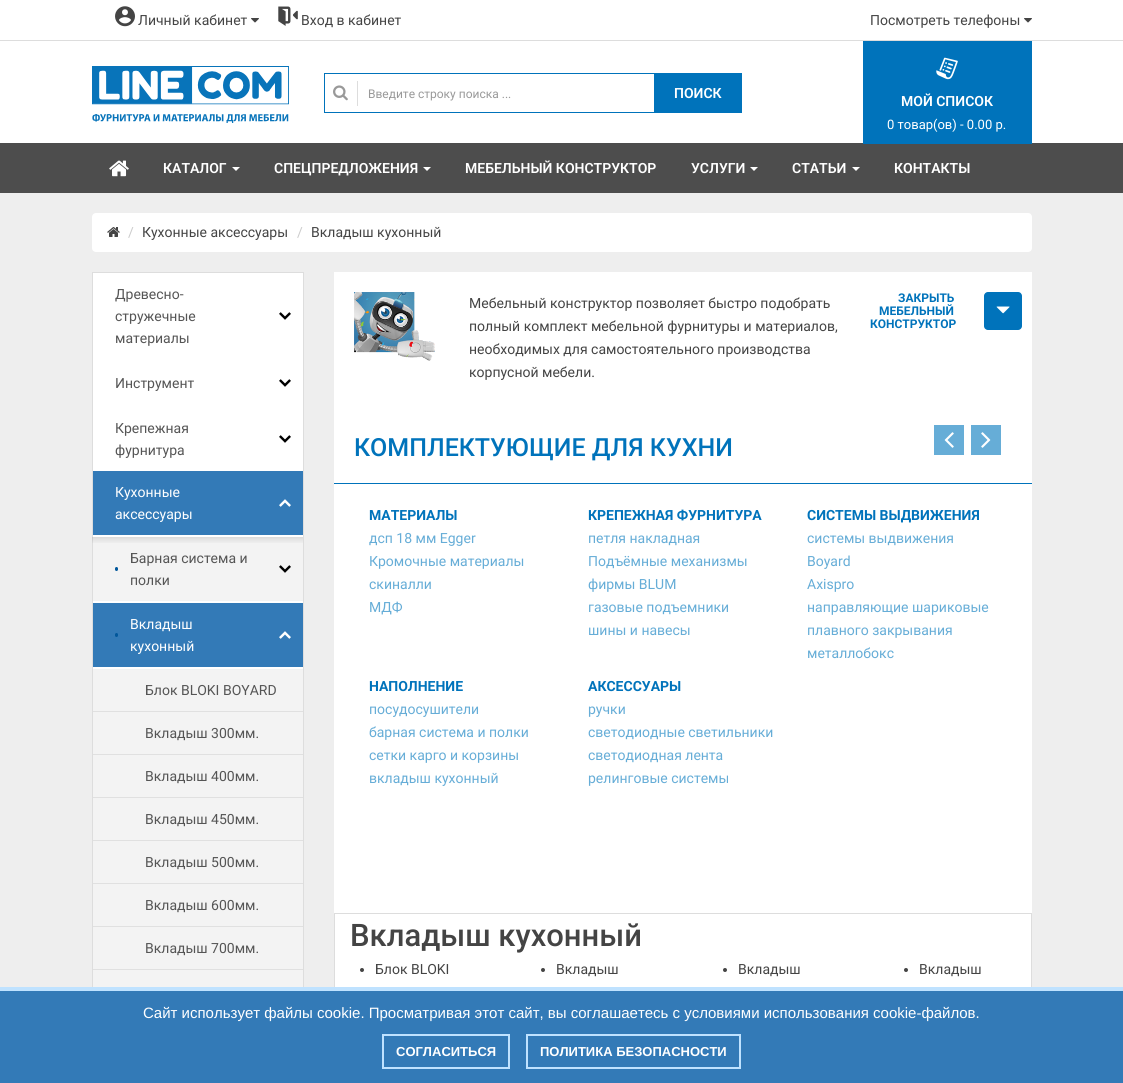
#include <cairo.h>
#include <math.h>
#include <stddef.h>

static cairo_t *c;
static void C(unsigned color){cairo_set_source_rgb(c, (color >> 16) / 255.0, (color >> 8 & 255) / 255.0, (color & 255) / 255.0);}
static void F(const char *family, double size, int italic, int bold){cairo_select_font_face(c, family, italic ? CAIRO_FONT_SLANT_ITALIC : CAIRO_FONT_SLANT_NORMAL,bold ? CAIRO_FONT_WEIGHT_BOLD : CAIRO_FONT_WEIGHT_NORMAL);cairo_set_font_size(c, size);}
static void T(double x, double y, const char *s){cairo_move_to(c, x, y);cairo_show_text(c, s);}
static void R(double x, double y, double w, double h){cairo_rectangle(c, x, y, w, h);cairo_fill(c);}
static void Q(double x, double y, double w, double h, double r){cairo_new_sub_path(c);cairo_arc(c, x + w - r, y + h - r, r, 0, M_PI / 2);cairo_arc(c, x + r, y + h - r, r, M_PI / 2, M_PI);cairo_arc(c, x + r, y + r, r, M_PI, 1.5 * M_PI);cairo_arc(c, x + w - r, y + r, r, 1.5 * M_PI, 2 * M_PI);cairo_close_path(c);}
static void I(const char *path, double x, double y, double w, double h){cairo_surface_t *image = cairo_image_surface_create_from_png(path);cairo_save(c);cairo_set_source_surface(c, image, x, y);cairo_rectangle(c, x, y, w, h);cairo_fill(c);cairo_restore(c);cairo_surface_destroy(image);}
int main(void) {
cairo_surface_t *surface = cairo_image_surface_create(CAIRO_FORMAT_RGB24, 1123, 1083);
c = cairo_create(surface);
cairo_font_options_t *options = cairo_font_options_create();
cairo_font_options_set_hint_metrics(options, CAIRO_HINT_METRICS_OFF);
cairo_font_options_set_hint_style(options, CAIRO_HINT_STYLE_NONE);
cairo_set_font_options(c, options);
cairo_set_miter_limit(c, 4);
cairo_pattern_t *gradient;
C(0xeeeeee);
cairo_paint(c);
C(0xffffff);
R(0,0,1123,143);
C(0xdddddd);
R(0,40,1123,1);
I("1.png",115,6,20,21);
F("Roboto",14,0,0);
C(0x444444);
T(138,25,"Личный кабинет");
I("2.png",251,18,8,5);
I("3.png",278,6,20,20);
T(301,25,"Вход в кабинет");
T(870,25,"Посмотреть телефоны");
I("2.png",1024,18,8,5);
I("4.png",92,66,197,57);
cairo_rectangle(c,324.5,73.5,417,39);
C(0x0073bb);
cairo_set_line_width(c,1);
cairo_stroke(c);
I("5.png",333,85,15,16);
C(0xdddddd);
R(357,81,1,25);
F("Roboto",12,0,0);
C(0x999999);
T(368,98,"Введите строку поиска ...");
C(0x0073bb);
R(654,74,87,38);
F("Roboto SemiBold",14,0,0);
C(0xffffff);
T(674,98,"ПОИСК");
C(0x4d4d4d);
R(0,143,1123,50);
C(0x0073bb);
R(863,41,169,103);
I("6.png",936,57,22,23);
C(0xffffff);
T(901,106,"МОЙ СПИСОК");
F("Roboto",13,0,0);
T(887,129,"0 товар(ов) - 0.00 р.");
I("7.png",109,160,20,17);
F("Roboto SemiBold",14,0,0);
T(163,173,"КАТАЛОГ");
cairo_new_path(c);
cairo_move_to(c,232,167);
cairo_line_to(c,240,167);
cairo_line_to(c,236,171);
cairo_close_path(c);
cairo_fill(c);
T(274,173,"СПЕЦПРЕДЛОЖЕНИЯ");
cairo_new_path(c);
cairo_move_to(c,423,167);
cairo_line_to(c,431,167);
cairo_line_to(c,427,171);
cairo_close_path(c);
cairo_fill(c);
T(465,173,"МЕБЕЛЬНЫЙ КОНСТРУКТОР");
T(691,173,"УСЛУГИ");
cairo_new_path(c);
cairo_move_to(c,750,167);
cairo_line_to(c,758,167);
cairo_line_to(c,754,171);
cairo_close_path(c);
cairo_fill(c);
T(792,173,"СТАТЬИ");
cairo_new_path(c);
cairo_move_to(c,852,167);
cairo_line_to(c,860,167);
cairo_line_to(c,856,171);
cairo_close_path(c);
cairo_fill(c);
T(894,173,"КОНТАКТЫ");
Q(92,213,940,39,4);
cairo_fill(c);
I("8.png",107,227,13,10);
F("Roboto",14,0,0);
C(0xcccccc);
T(128,237,"/");
C(0x444444);
T(142,237,"Кухонные аксессуары");
C(0xcccccc);
T(297,237,"/");
C(0x444444);
T(311,237,"Вкладыш кухонный");
cairo_rectangle(c,92.5,272.5,211,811);
C(0xdddddd);
cairo_stroke(c);
C(0xffffff);
R(93,273,210,198);
C(0x555555);
T(115,299,"Древесно-");
T(115,321,"стружечные");
T(115,343,"материалы");
I("9.png",279,312,12,8);
T(115,388,"Инструмент");
I("9.png",279,379,12,8);
T(115,433,"Крепежная");
T(115,455,"фурнитура");
I("9.png",279,435,12,8);
C(0x337ab7);
R(93,471,210,64);
C(0xffffff);
T(115,497,"Кухонные");
T(115,519,"аксессуары");
I("10.png",279,499,12,8);
C(0xf3f3f3);
R(93,537,210,64);
C(0xffffff);
R(93,535,210,2);
gradient = cairo_pattern_create_linear(199,537,199,601);
cairo_pattern_add_color_stop_rgba(gradient,0,0,0,0,.1);
cairo_pattern_add_color_stop_rgba(gradient,.11,0,0,0,0);
cairo_pattern_add_color_stop_rgba(gradient,1,0,0,0,0);
cairo_set_source(c,gradient);
cairo_pattern_destroy(gradient);
R(92,537,211,6);
C(0x555555);
T(130,563,"Барная система и");
C(0x01579b);
Q(115,567,3,4,1.5);
cairo_fill(c);
C(0x555555);
T(130,585,"полки");
I("11.png",279,565,12,8);
C(0x337ab7);
R(93,603,210,64);
C(0xffffff);
R(93,601,210,2);
T(130,629,"Вкладыш");
C(0x01579b);
Q(115,633,3,4,1.5);
cairo_fill(c);
C(0xffffff);
T(130,651,"кухонный");
I("10.png",279,631,12,8);
C(0xf3f3f3);
R(93,669,210,42);
C(0xffffff);
R(93,667,210,2);
C(0xe0e0e0);
R(93,711,210,1);
C(0x555555);
T(145,695,"Блок BLOKI BOYARD");
C(0xf3f3f3);
R(93,712,210,42);
C(0xe0e0e0);
R(93,754,210,1);
C(0x555555);
T(145,738,"Вкладыш 300мм.");
C(0xf3f3f3);
R(93,755,210,42);
C(0xe0e0e0);
R(93,797,210,1);
C(0x555555);
T(145,781,"Вкладыш 400мм.");
C(0xf3f3f3);
R(93,798,210,42);
C(0xe0e0e0);
R(93,840,210,1);
C(0x555555);
T(145,824,"Вкладыш 450мм.");
C(0xf3f3f3);
R(93,841,210,42);
C(0xe0e0e0);
R(93,883,210,1);
C(0x555555);
T(145,867,"Вкладыш 500мм.");
C(0xf3f3f3);
R(93,884,210,42);
C(0xe0e0e0);
R(93,926,210,1);
C(0x555555);
T(145,910,"Вкладыш 600мм.");
C(0xf3f3f3);
R(93,927,210,42);
C(0xe0e0e0);
R(93,969,210,1);
C(0x555555);
T(145,953,"Вкладыш 700мм.");
C(0xf3f3f3);
R(93,970,210,17);
C(0xffffff);
R(334,272,698,641);
I("12.png",354,292,81,69);
C(0x444444);
T(469,308,"Мебельный конструктор позволяет быстро подобрать");
T(469,331,"полный комплект мебельной фурнитуры и материалов,");
T(469,354,"необходимых для самостоятельного производства");
T(469,377,"корпусной мебели.");
F("Roboto",12,0,1);
C(0x0073bb);
T(898,302,"ЗАКРЫТЬ");
T(879,315,"МЕБЕЛЬНЫЙ");
T(870,328,"КОНСТРУКТОР");
Q(984,292,38,38,4);
cairo_fill(c);
I("13.png",996,306,14,8);
C(0x66add7);
R(934,425,30,30);
I("14.png",944,432,10,16);
R(971,425,30,30);
I("15.png",981,432,10,16);
C(0x0073bb);
R(334,483,698,1);
F("Roboto Medium",25,0,0);
T(354,456,"КОМПЛЕКТУЮЩИЕ ДЛЯ КУХНИ");
F("Roboto",14,0,1);
T(369,520,"МАТЕРИАЛЫ");
F("Roboto",14,0,0);
C(0x66add7);
T(369,543,"дсп 18 мм Egger");
T(369,566,"Кромочные материалы");
T(369,589,"скиналли");
T(369,612,"МДФ");
F("Roboto",14,0,1);
C(0x0073bb);
T(588,520,"КРЕПЕЖНАЯ ФУРНИТУРА");
F("Roboto",14,0,0);
C(0x66add7);
T(588,543,"петля накладная");
T(588,566,"Подъёмные механизмы");
T(588,589,"фирмы BLUM");
T(588,612,"газовые подъемники");
T(588,635,"шины и навесы");
F("Roboto",14,0,1);
C(0x0073bb);
T(807,520,"CИСТЕМЫ ВЫДВИЖЕНИЯ");
F("Roboto",14,0,0);
C(0x66add7);
T(807,543,"системы выдвижения");
T(807,566,"Boyard");
T(807,589,"Axispro");
T(807,612,"направляющие шариковые");
T(807,635,"плавного закрывания");
T(807,658,"металлобокс");
F("Roboto",14,0,1);
C(0x0073bb);
T(369,691,"НАПОЛНЕНИЕ");
F("Roboto",14,0,0);
C(0x66add7);
T(369,714,"посудосушители");
T(369,737,"барная система и полки");
T(369,760,"сетки карго и корзины");
T(369,783,"вкладыш кухонный");
F("Roboto",14,0,1);
C(0x0073bb);
T(588,691,"АКСЕССУАРЫ");
F("Roboto",14,0,0);
C(0x66add7);
T(588,714,"ручки");
T(588,737,"светодиодные светильники");
T(588,760,"светодиодная лента");
T(588,783,"релинговые системы");
C(0xffffff);
R(335,914,696,73);
cairo_rectangle(c,334.5,913.5,697,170);
C(0xdddddd);
cairo_stroke(c);
F("Roboto Medium",31,0,0);
C(0x444444);
T(350,946,"Вкладыш кухонный");
cairo_new_path(c);
cairo_arc(c,362,970,2,0,2 * M_PI);
cairo_fill(c);
F("Roboto",14,0,0);
T(375,974,"Блок BLOKI");
cairo_new_path(c);
cairo_arc(c,543,970,2,0,2 * M_PI);
cairo_fill(c);
T(556,974,"Вкладыш");
cairo_new_path(c);
cairo_arc(c,725,970,2,0,2 * M_PI);
cairo_fill(c);
T(738,974,"Вкладыш");
cairo_new_path(c);
cairo_arc(c,906,970,2,0,2 * M_PI);
cairo_fill(c);
T(919,974,"Вкладыш");
C(0x337ab7);
R(0,991,1123,92);
C(0xbfe2ff);
R(0,987,1123,4);
F("Liberation Sans",15,0,0);
C(0xffffff);
T(143,1018,"Cайт использует файлы cookie. Просматривая этот сайт, вы соглашаетесь с условиями использования cookie-файлов.");
cairo_rectangle(c,383,1035,126,33);
C(0xbfe2ff);
cairo_set_line_width(c,2);
cairo_stroke(c);
F("Liberation Sans",13,0,1);
C(0xffffff);
T(396,1056,"СОГЛАСИТЬСЯ");
cairo_rectangle(c,527,1035,213,33);
C(0xbfe2ff);
cairo_stroke(c);
C(0xffffff);
T(540,1056,"ПОЛИТИКА БЕЗОПАСНОСТИ");
cairo_surface_write_to_png(surface, "o.png");
cairo_font_options_destroy(options);
cairo_destroy(c);
cairo_surface_destroy(surface);
return 0;
}
